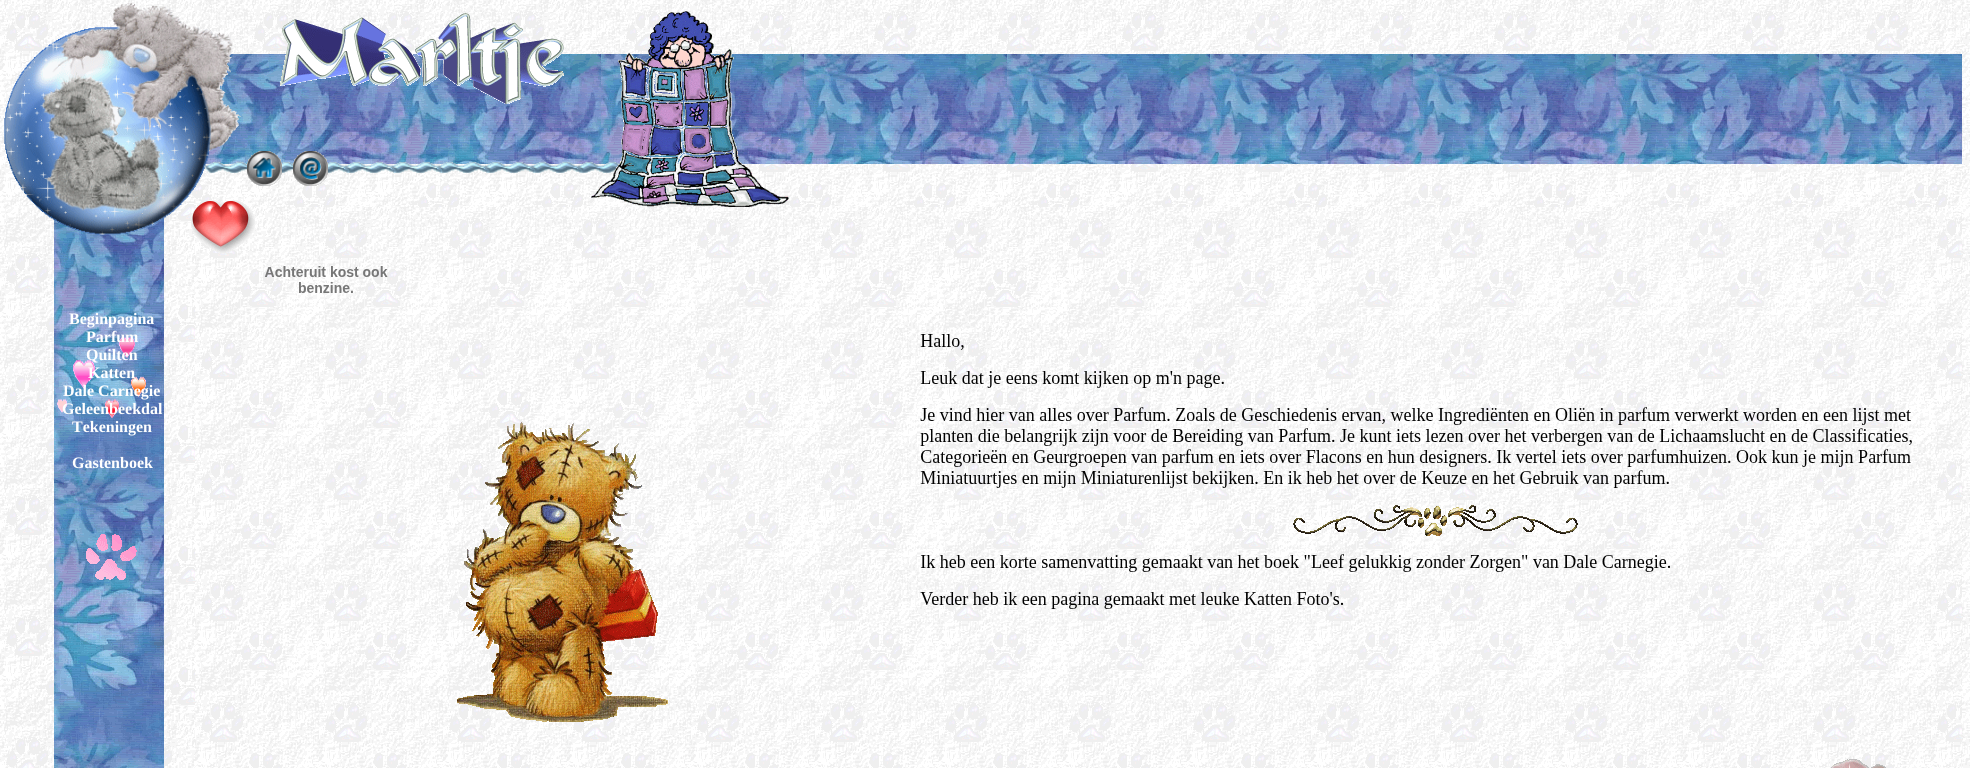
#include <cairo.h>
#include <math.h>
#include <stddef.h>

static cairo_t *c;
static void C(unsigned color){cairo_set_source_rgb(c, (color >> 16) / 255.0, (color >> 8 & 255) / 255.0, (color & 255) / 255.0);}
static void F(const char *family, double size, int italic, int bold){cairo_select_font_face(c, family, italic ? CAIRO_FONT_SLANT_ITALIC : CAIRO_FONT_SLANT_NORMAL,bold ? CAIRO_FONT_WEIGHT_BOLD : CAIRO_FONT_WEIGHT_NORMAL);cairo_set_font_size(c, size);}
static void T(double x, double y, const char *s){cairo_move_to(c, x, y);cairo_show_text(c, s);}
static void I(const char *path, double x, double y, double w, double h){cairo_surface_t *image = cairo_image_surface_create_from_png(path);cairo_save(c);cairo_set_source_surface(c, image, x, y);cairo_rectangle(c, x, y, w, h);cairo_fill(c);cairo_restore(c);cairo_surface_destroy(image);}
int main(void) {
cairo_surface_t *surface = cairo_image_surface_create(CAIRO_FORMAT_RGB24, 1970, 768);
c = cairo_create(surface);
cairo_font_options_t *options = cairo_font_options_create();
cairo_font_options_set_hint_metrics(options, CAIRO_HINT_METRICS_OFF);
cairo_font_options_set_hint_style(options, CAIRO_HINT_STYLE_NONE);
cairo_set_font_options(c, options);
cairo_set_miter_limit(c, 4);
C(0xffffff);
cairo_paint(c);
I("1.png",0,0,1970,768);
I("3.png",205,54,1757,110);
I("9.png",195,207,1767,561);
I("7.png",191,200,64,54);
I("8.png",54,218,110,550);
I("2.png",4,3,237,232);
I("6.png",204,161,426,12);
I("4.png",247,151,35,35);
I("5.png",293,151,35,35);
I("10.png",280,13,284,91);
I("11.png",591,11,201,196);
F("Liberation Serif",16,0,1);
C(0xffffff);
T(69,324,"Beginpagina");
I("12.png",57,337,89,81);
T(86,342,"Parfum");
T(86,360,"Quilten");
T(88,378,"Katten");
T(63,396,"Dale Carnegie");
T(62,414,"Geleenbeekdal");
T(72,432,"Tekeningen");
T(72,468,"Gastenboek");
I("13.png",86,534,51,46);
cairo_surface_write_to_png(surface, "o.png");
cairo_font_options_destroy(options);
cairo_destroy(c);
cairo_surface_destroy(surface);
return 0;
}
